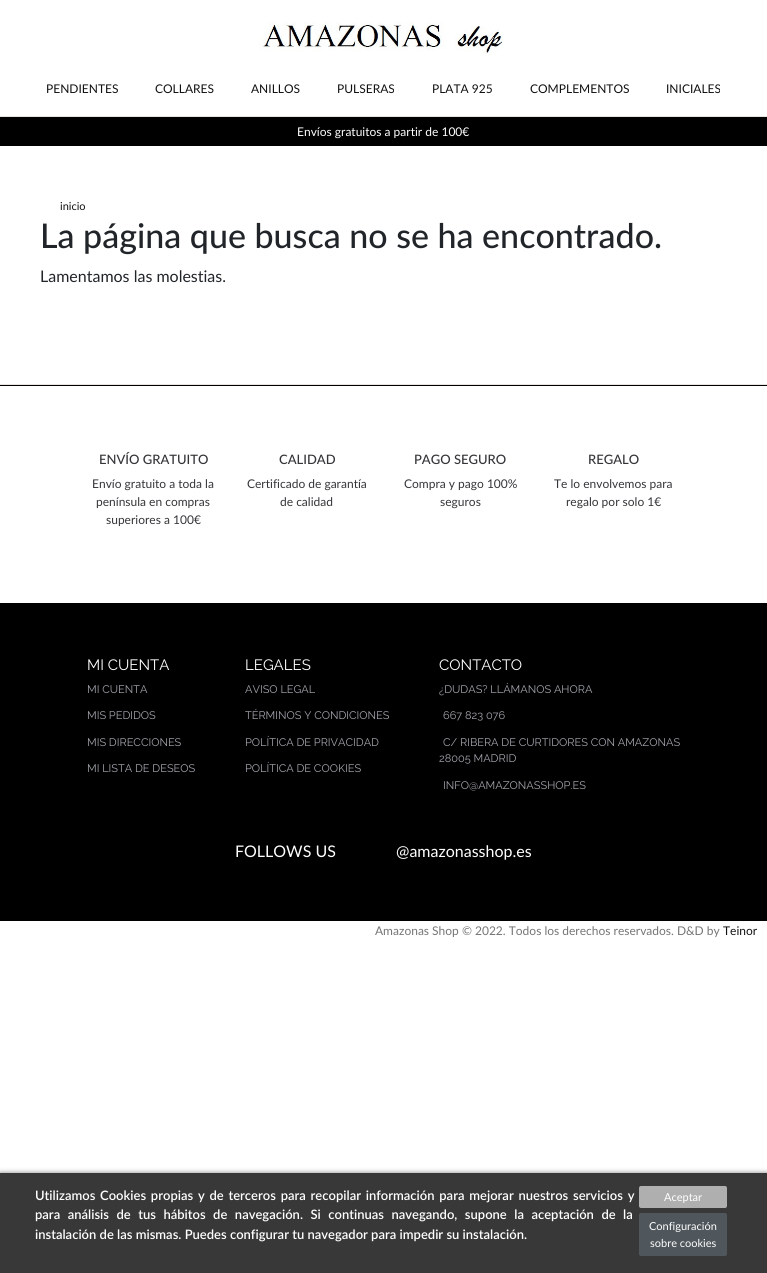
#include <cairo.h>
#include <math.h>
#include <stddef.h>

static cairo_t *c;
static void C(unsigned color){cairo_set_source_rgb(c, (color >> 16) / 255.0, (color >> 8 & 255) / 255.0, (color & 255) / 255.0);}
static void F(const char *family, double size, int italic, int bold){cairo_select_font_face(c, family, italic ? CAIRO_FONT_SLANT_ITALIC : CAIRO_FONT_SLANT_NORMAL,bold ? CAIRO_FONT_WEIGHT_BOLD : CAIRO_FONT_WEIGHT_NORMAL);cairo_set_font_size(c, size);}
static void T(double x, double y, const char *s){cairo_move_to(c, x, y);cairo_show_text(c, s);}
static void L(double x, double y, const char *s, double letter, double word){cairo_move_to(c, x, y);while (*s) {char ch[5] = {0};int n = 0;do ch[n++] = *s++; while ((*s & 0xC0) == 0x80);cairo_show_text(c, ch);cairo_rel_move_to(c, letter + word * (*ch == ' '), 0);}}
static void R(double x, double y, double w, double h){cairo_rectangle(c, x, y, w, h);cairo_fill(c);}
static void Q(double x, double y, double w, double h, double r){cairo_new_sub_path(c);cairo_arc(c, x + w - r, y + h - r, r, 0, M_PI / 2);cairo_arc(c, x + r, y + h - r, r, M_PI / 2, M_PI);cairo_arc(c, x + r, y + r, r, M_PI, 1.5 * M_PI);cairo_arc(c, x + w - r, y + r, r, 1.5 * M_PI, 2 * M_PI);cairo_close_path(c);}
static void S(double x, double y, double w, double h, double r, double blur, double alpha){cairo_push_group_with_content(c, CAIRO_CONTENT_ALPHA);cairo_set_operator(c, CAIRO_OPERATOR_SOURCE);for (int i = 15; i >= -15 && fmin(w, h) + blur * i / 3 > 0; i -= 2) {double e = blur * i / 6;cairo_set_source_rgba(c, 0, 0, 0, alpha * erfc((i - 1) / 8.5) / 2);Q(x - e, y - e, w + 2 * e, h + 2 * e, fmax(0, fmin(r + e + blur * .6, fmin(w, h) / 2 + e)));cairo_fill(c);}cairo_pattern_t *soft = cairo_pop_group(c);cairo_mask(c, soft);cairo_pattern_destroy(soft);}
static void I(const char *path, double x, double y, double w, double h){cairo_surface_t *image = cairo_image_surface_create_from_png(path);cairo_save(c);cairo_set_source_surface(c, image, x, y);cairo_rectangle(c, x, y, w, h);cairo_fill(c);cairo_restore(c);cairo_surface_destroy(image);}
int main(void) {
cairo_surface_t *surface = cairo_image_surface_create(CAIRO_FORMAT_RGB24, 767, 1273);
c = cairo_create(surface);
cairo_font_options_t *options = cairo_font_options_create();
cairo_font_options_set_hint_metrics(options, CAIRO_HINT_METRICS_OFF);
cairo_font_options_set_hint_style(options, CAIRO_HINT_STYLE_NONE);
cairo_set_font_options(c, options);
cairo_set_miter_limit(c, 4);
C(0xffffff);
cairo_paint(c);
C(0xe6e4dd);
R(0,116,767,1);
I("1.png",259,21,244,35);
F("Lato",12,0,0);
C(0x111111);
T(46,93,"PENDIENTES");
T(155,93,"COLLARES");
T(251,93,"ANILLOS");
T(337,93,"PULSERAS");
T(432,93,"PLATA 925");
T(530,93,"COMPLEMENTOS");
T(666,93,"INICIALES");
C(0x000000);
R(0,117,767,29);
C(0xffffff);
T(297,136,"Envíos gratuitos a partir de 100€");
F("Lato",11,0,0);
C(0x111111);
T(60,210,"inicio");
F("Lato Medium",34,0,0);
C(0x212529);
T(40,248,"La página que busca no se ha encontrado.");
F("Lato",16,0,0);
T(40,282,"Lamentamos las molestias.");
C(0xe6e4dd);
R(0,384,767,1);
C(0x000000);
R(0,385,767,1);
F("Lato Medium",13,0,0);
C(0x343538);
T(99,464,"ENVÍO GRATUITO");
F("Lato",12,0,0);
T(92,488,"Envío gratuito a toda la");
T(96,506,"península en compras");
T(106,524,"superiores a 100€");
F("Lato Medium",13,0,0);
T(279,464,"CALIDAD");
F("Lato",12,0,0);
T(247,488,"Certificado de garantía");
T(280,506,"de calidad");
F("Lato Medium",13,0,0);
T(414,464,"PAGO SEGURO");
F("Lato",12,0,0);
T(404,488,"Compra y pago 100%");
T(440,506,"seguros");
F("Lato Medium",13,0,0);
T(588,464,"REGALO");
F("Lato",12,0,0);
T(554,488,"Te lo envolvemos para");
T(566,506,"regalo por solo 1€");
C(0x000000);
R(0,603,767,318);
F("Raleway",15,0,0);
C(0xffffff);
T(87,670,"MI CUENTA");
F("Raleway",11,0,0);
C(0xa3a5ad);
T(87,693,"MI CUENTA");
T(87,719,"MIS PEDIDOS");
T(87,746,"MIS DIRECCIONES");
T(87,772,"MI LISTA DE DESEOS");
F("Raleway",15,0,0);
C(0xffffff);
T(245,670,"LEGALES");
F("Raleway",11,0,0);
C(0xa3a5ad);
T(245,693,"AVISO LEGAL");
T(245,719,"TÉRMINOS Y CONDICIONES");
T(245,746,"POLÍTICA DE PRIVACIDAD");
T(245,772,"POLÍTICA DE COOKIES");
F("Raleway",15,0,0);
C(0xffffff);
T(439,670,"CONTACTO");
F("Raleway",11,0,0);
C(0xa3a5ad);
T(439,693,"¿DUDAS? LLÁMANOS AHORA");
T(443,719,"667 823 076");
T(443,746,"C/ RIBERA DE CURTIDORES CON AMAZONAS");
T(439,762,"28005 MADRID");
T(443,789,"INFO@AMAZONASSHOP.ES");
F("Lato",16,0,0);
C(0xffffff);
T(235,857,"FOLLOWS US");
T(396,857,"@amazonasshop.es");
F("Lato",12,0,0);
C(0x757575);
T(375,935,"Amazonas Shop © 2022. Todos los derechos reservados. D&D by");
C(0x111111);
T(723,935,"Teinor");
C(0x000000);
S(0,1173,767,100,0,2.5,.5);
C(0x383838);
R(0,1173,767,100);
F("Lato SemiBold",13,0,0);
C(0xffffff);
L(35,1200,"Utilizamos Cookies propias y de terceros para recopilar información para mejorar nuestros servicios y",0,1.5);
L(35,1219,"para análisis de tus hábitos de navegación. Si continuas navegando, supone la aceptación de la",0,4.25);
T(35,1239,"instalación de las mismas. Puedes configurar tu navegador para impedir su instalación.");
C(0xafafaf);
Q(639,1186,88,22,2);
cairo_fill(c);
F("Lato",11,0,0);
C(0xffffff);
T(664,1201,"Aceptar");
C(0x50575c);
Q(639,1213,88,43,2);
cairo_fill(c);
C(0xffffff);
T(649,1230,"Configuración");
T(650,1247,"sobre cookies");
cairo_surface_write_to_png(surface, "o.png");
cairo_font_options_destroy(options);
cairo_destroy(c);
cairo_surface_destroy(surface);
return 0;
}
